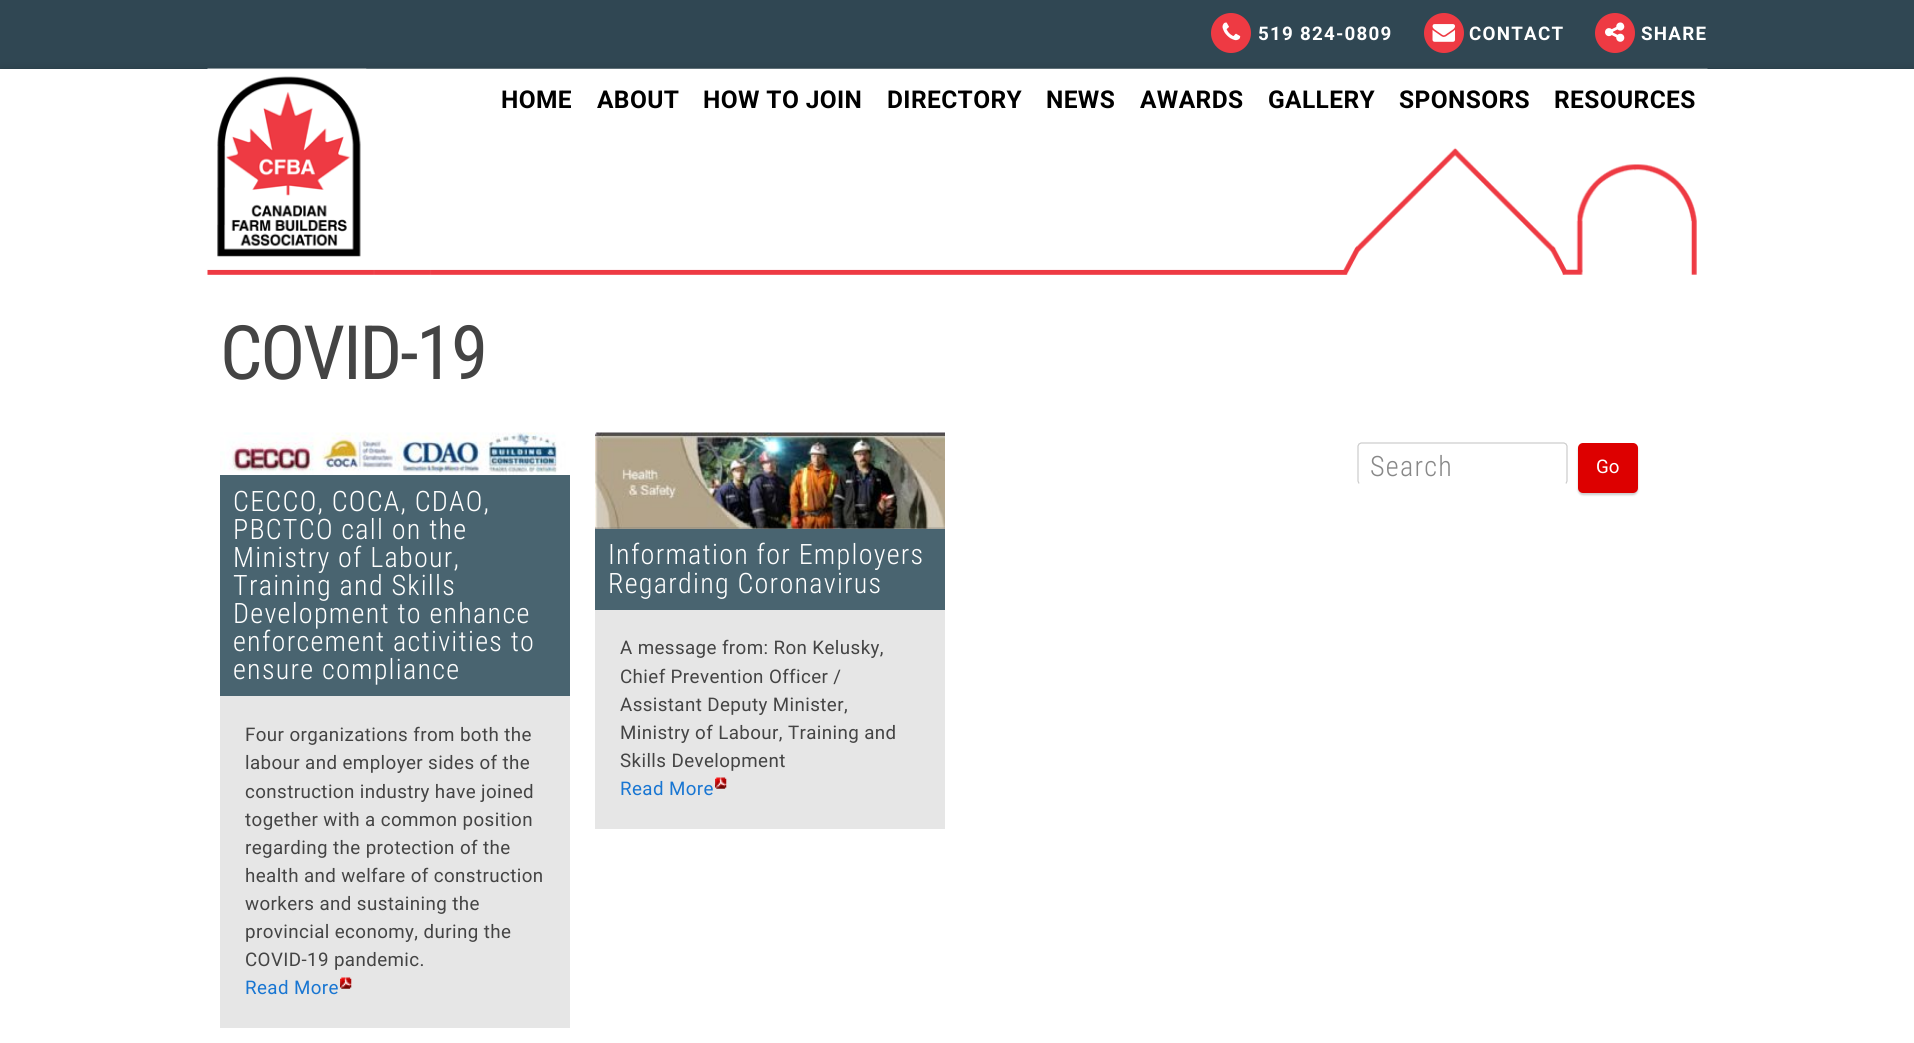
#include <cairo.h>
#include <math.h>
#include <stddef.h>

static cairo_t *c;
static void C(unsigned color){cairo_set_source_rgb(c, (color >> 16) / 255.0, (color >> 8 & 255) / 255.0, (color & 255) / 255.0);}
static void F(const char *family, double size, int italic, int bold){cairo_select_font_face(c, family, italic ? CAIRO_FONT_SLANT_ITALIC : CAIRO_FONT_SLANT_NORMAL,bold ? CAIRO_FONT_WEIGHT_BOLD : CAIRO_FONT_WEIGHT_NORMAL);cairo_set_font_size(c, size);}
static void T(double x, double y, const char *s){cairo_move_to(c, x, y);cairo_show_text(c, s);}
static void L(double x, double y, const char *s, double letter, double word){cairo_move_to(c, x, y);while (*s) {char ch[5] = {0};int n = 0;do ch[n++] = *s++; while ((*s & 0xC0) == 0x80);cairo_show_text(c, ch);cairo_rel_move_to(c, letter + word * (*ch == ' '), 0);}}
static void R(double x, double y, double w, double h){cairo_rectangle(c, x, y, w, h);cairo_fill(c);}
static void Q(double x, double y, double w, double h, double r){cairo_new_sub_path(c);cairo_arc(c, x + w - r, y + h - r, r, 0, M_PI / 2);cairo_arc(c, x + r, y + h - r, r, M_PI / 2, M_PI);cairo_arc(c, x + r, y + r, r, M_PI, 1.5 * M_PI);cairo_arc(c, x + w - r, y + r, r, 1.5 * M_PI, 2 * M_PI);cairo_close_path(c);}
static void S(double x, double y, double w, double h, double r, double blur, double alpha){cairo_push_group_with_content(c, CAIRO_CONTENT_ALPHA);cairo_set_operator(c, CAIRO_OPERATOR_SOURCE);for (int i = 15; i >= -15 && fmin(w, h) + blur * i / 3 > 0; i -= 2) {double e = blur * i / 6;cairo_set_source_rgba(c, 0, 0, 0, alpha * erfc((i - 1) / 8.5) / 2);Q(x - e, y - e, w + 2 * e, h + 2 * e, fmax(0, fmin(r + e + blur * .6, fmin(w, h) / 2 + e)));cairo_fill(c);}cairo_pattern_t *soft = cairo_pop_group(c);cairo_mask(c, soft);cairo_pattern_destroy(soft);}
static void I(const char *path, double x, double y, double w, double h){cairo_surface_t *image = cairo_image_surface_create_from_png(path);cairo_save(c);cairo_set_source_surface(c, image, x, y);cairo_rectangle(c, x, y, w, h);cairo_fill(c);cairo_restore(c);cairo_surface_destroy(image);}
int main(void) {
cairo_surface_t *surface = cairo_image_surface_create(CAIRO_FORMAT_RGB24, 1914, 1043);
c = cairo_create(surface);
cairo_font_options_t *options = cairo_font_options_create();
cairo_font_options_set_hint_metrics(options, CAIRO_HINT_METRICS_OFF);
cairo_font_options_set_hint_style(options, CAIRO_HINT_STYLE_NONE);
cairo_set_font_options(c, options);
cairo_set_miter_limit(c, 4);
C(0x304753);
cairo_paint(c);
C(0xee3a43);
cairo_arc(c,1231,33,20,0,2 * M_PI);
cairo_fill(c);
I("1.png",1222,22,19,19);
F("Roboto",18.75,0,1);
C(0xffffff);
L(1258,40,"519 824-0809",1.25,0);
C(0xee3a43);
cairo_new_path(c);
cairo_arc(c,1444,33,20,0,2 * M_PI);
cairo_fill(c);
I("2.png",1432,24,24,18);
C(0xffffff);
L(1469,40,"CONTACT",1.25,0);
C(0xee3a43);
cairo_new_path(c);
cairo_arc(c,1615,33,20,0,2 * M_PI);
cairo_fill(c);
I("3.png",1605,22,20,20);
C(0xffffff);
L(1641,40,"SHARE",1.25,0);
C(0x000000);
S(0,75,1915,219,0,6,.5);
C(0xffffff);
R(0,69,1914,974);
I("4.png",207,68,1501,207);
I("5.png",207,68,160,189);
F("Roboto",24.5,0,1);
C(0x000000);
L(501,108,"HOME",.4,0);
L(597,108,"ABOUT",.4,0);
L(703,108,"HOW TO JOIN",.4,0);
L(887,108,"DIRECTORY",.4,0);
L(1046,108,"NEWS",.4,0);
L(1140,108,"AWARDS",.4,0);
L(1268,108,"GALLERY",.4,0);
L(1399,108,"SPONSORS",.4,0);
L(1554,108,"RESOURCES",.4,0);
F("Roboto Condensed",75,0,0);
C(0x444444);
L(220,379,"COVID-19",-2.25,0);
cairo_new_path(c);
cairo_move_to(c,1359,483.5);
cairo_line_to(c,1358,481);
cairo_line_to(c,1358,446);
cairo_line_to(c,1359,444);
cairo_line_to(c,1361,443);
cairo_line_to(c,1564,443);
cairo_line_to(c,1566,444);
cairo_line_to(c,1567,446);
cairo_line_to(c,1567,481);
cairo_line_to(c,1566,483.5);
C(0xcccccc);
cairo_set_line_width(c,1.2);
cairo_stroke(c);
F("Roboto Condensed Light",28.1,0,0);
C(0x888888);
L(1370,476,"Search",1.25,0);
C(0x000000);
S(1578,445,60,50,5,1,.2);
C(0xdd0000);
Q(1578,443,60,50,5);
cairo_fill(c);
F("Roboto",18.75,0,0);
C(0xffffff);
T(1596,473,"Go");
C(0xe6e6e6);
R(220,696,350,332);
I("6.png",220,432,350,43);
C(0x496470);
R(220,475,350,221);
F("Roboto Condensed Light",28.1,0,0);
C(0xffffff);
L(233,511,"CECCO, COCA, CDAO,",1.25,0);
L(233,539,"PBCTCO call on the",1.25,0);
L(233,567,"Ministry of Labour,",1.25,0);
L(233,595,"Training and Skills",1.25,0);
L(233,623,"Development to enhance",1.25,0);
L(233,651,"enforcement activities to",1.25,0);
L(233,679,"ensure compliance",1.25,0);
F("Roboto",18.75,0,0);
C(0x444444);
L(245,741,"Four organizations from both the",.4,0);
L(245,769,"labour and employer sides of the",.4,0);
L(245,798,"construction industry have joined",.4,0);
L(245,826,"together with a common position",.4,0);
L(245,854,"regarding the protection of the",.4,0);
L(245,882,"health and welfare of construction",.4,0);
L(245,910,"workers and sustaining the",.4,0);
L(245,938,"provincial economy, during the",.4,0);
L(245,966,"COVID-19 pandemic.",.4,0);
C(0x1976d2);
L(245,994,"Read More",.4,0);
I("7.png",340,977,12,12);
C(0xe6e6e6);
R(595,528,350,301);
I("8.png",595,432,350,97);
C(0x496470);
R(595,529,350,81);
F("Roboto Condensed Light",28.1,0,0);
C(0xffffff);
L(608,564,"Information for Employers",1.25,0);
L(608,593,"Regarding Coronavirus",1.25,0);
F("Roboto",18.75,0,0);
C(0x444444);
L(620,654,"A message from: Ron Kelusky,",.4,0);
L(620,683,"Chief Prevention Officer /",.4,0);
L(620,711,"Assistant Deputy Minister,",.4,0);
L(620,739,"Ministry of Labour, Training and",.4,0);
L(620,767,"Skills Development",.4,0);
C(0x1976d2);
L(620,795,"Read More",.4,0);
I("9.png",715,777,12,12);
cairo_surface_write_to_png(surface, "o.png");
cairo_font_options_destroy(options);
cairo_destroy(c);
cairo_surface_destroy(surface);
return 0;
}
